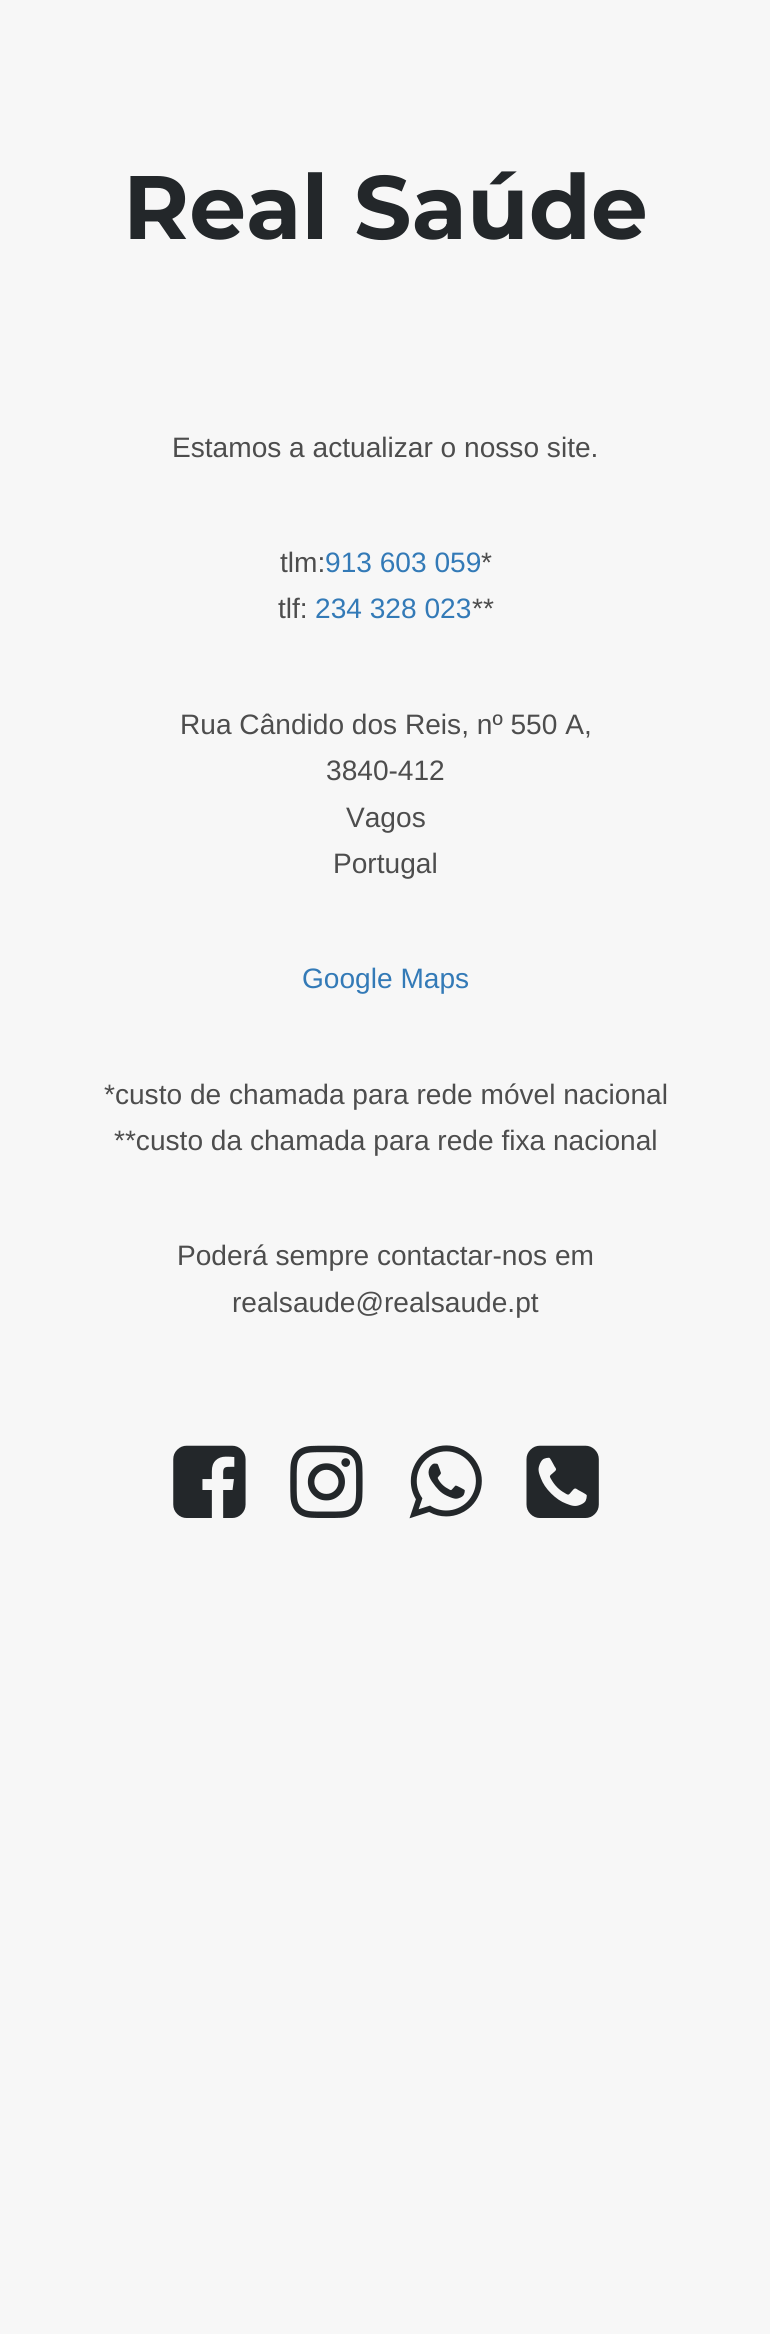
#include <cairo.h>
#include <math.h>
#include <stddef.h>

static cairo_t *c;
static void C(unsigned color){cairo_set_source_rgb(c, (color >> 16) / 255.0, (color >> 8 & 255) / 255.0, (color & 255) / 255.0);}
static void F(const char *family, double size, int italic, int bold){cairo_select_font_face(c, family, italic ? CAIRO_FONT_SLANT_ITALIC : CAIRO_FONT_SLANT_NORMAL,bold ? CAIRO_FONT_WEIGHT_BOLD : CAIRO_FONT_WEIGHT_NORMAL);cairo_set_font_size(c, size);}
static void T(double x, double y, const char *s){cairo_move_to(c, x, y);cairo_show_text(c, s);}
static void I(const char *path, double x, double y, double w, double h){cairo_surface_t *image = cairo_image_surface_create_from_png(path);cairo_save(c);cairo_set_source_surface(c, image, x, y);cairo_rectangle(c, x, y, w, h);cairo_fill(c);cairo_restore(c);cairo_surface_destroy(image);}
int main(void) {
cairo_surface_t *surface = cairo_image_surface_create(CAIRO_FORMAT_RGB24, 770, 2334);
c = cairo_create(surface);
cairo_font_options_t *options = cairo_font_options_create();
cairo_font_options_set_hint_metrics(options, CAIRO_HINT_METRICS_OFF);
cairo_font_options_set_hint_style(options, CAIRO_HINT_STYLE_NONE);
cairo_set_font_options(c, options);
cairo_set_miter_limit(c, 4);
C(0xf7f7f7);
cairo_paint(c);
F("Montserrat Thin",90,0,0);
C(0x23272a);
T(123,239,"Real Saúde");
F("Liberation Sans",28.1,0,0);
C(0x4d4d4d);
T(172,457,"Estamos a actualizar o nosso site.");
T(280,572,"tlm:");
C(0x337ab7);
T(325,572,"913 603 059");
C(0x4d4d4d);
T(481,572,"*");
T(278,618,"tlf:");
C(0x337ab7);
T(315,618,"234 328 023");
C(0x4d4d4d);
T(472,618,"**");
T(180,734,"Rua Cândido dos Reis, nº 550 A,");
T(326,780,"3840-412");
T(346,827,"Vagos");
T(333,873,"Portugal");
C(0x337ab7);
T(302,988,"Google Maps");
C(0x4d4d4d);
T(104,1104,"*custo de chamada para rede móvel nacional");
T(114,1150,"**custo da chamada para rede fixa nacional");
T(177,1265,"Poderá sempre contactar-nos em");
T(232,1312,"realsaude@realsaude.pt");
I("1.png",173,1445,73,73);
I("2.png",290,1445,73,73);
I("3.png",409,1445,73,74);
I("4.png",526,1445,73,73);
cairo_surface_write_to_png(surface, "o.png");
cairo_font_options_destroy(options);
cairo_destroy(c);
cairo_surface_destroy(surface);
return 0;
}
